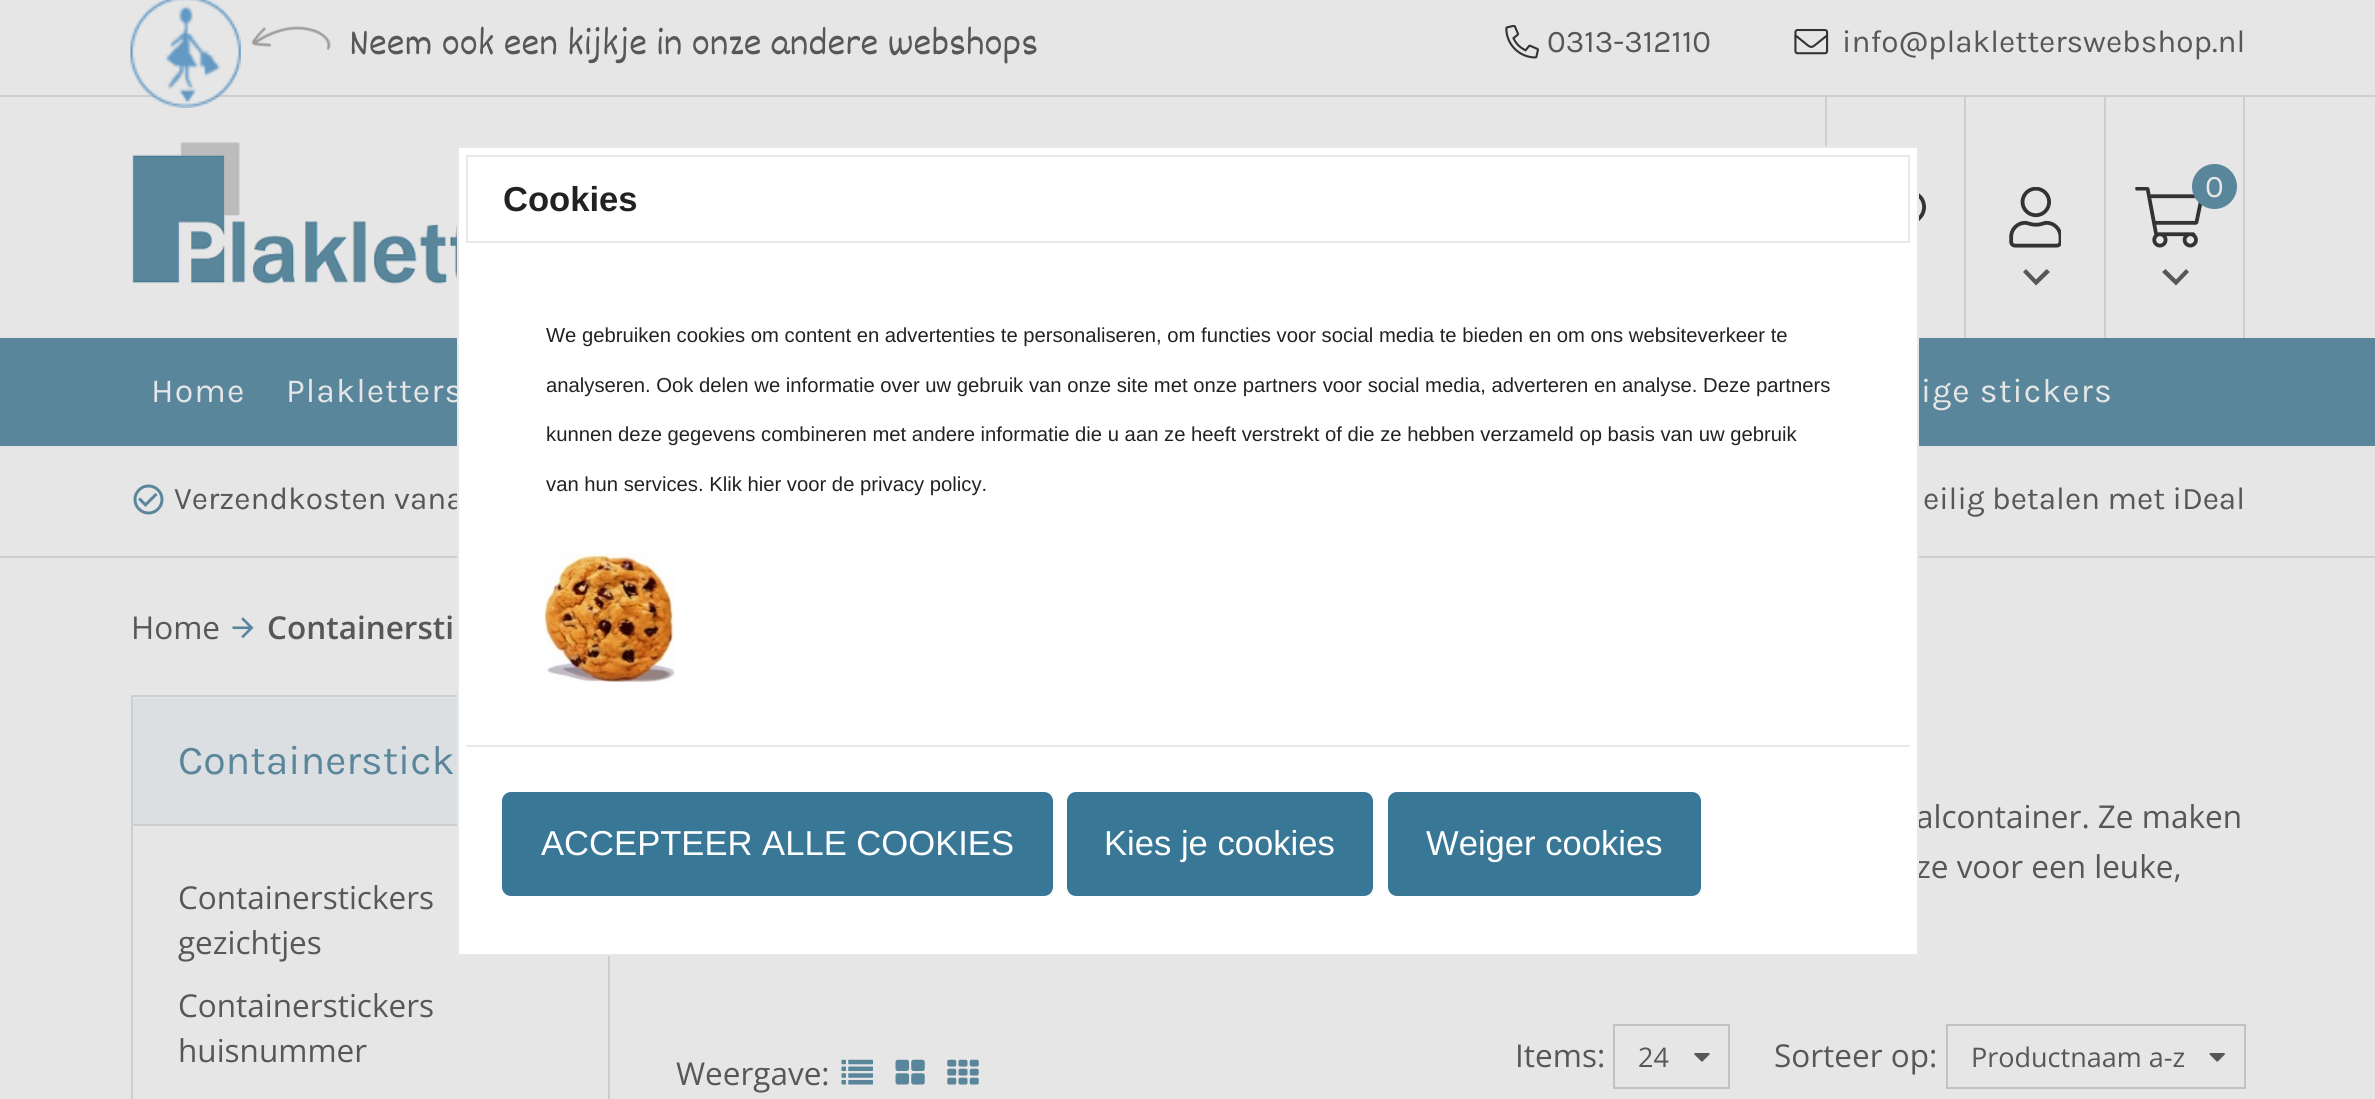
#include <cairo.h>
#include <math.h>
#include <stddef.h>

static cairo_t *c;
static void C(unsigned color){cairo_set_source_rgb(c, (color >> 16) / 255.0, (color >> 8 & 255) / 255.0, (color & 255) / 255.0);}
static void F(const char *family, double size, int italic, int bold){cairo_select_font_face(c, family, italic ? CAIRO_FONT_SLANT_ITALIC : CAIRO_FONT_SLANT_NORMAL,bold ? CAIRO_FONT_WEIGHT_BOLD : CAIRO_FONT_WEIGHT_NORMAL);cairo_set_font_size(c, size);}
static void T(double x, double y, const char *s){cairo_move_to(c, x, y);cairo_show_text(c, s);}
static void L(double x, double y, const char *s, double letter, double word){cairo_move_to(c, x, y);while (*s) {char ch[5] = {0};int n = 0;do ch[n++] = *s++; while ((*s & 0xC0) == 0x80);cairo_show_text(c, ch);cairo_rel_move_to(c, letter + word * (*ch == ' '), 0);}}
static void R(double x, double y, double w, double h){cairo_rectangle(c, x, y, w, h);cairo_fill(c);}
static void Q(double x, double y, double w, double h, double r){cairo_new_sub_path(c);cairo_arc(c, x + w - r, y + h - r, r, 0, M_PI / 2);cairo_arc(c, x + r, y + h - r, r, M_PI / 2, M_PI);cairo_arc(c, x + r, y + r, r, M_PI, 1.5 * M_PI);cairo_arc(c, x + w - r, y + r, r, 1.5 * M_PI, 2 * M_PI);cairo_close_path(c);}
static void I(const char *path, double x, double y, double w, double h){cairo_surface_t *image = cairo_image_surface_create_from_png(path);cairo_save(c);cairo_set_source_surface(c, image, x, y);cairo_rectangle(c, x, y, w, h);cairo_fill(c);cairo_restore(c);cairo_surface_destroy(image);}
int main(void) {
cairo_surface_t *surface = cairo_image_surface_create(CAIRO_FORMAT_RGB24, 2375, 1099);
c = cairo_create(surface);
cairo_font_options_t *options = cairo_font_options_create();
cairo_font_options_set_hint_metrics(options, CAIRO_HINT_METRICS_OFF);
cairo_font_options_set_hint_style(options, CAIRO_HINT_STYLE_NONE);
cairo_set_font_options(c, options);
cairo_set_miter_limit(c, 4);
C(0xe6e6e6);
cairo_paint(c);
C(0xcecece);
R(0,95,2375,2);
I("1.png",130,0,111,108);
I("2.png",251,26,80,24);
F("Dekko",40.5,0,0);
C(0x575757);
T(349,54,"Neem ook een kijkje in onze andere webshops");
I("3.png",1505,25,34,34);
F("Karla",31.5,0,0);
T(1547,52,"0313-312110");
I("4.png",1794,29,35,26);
T(1842,52,"info@plakletterswebshop.nl");
I("5.png",132,142,820,155);
C(0xcecece);
R(1825,97,2,49);
I("6.png",1919,193,7,28);
R(1964,97,2,241);
I("7.png",2009,187,52,61);
C(0x575757);
cairo_new_path(c);
cairo_move_to(c,2026,269);
cairo_line_to(c,2036,279.5);
cairo_line_to(c,2046.5,269);
cairo_line_to(c,2050,272);
cairo_line_to(c,2036,285.5);
cairo_line_to(c,2023,272);
cairo_close_path(c);
cairo_fill(c);
C(0xcecece);
R(2243,97,2,241);
R(2104,97,2,241);
I("8.png",2135,187,67,61);
C(0x575757);
cairo_new_path(c);
cairo_move_to(c,2165.5,269);
cairo_line_to(c,2176,279.5);
cairo_line_to(c,2186,269);
cairo_line_to(c,2189,272);
cairo_line_to(c,2176,285.5);
cairo_line_to(c,2162,272);
cairo_close_path(c);
cairo_fill(c);
C(0x5a869c);
cairo_arc(c,2214.5,186.5,22.5,0,2 * M_PI);
cairo_fill(c);
C(0xe6e6e6);
T(2205,197,"0");
C(0x5a869c);
R(0,338,2375,108);
F("Karla",33.75,0,0);
C(0xe6e6e6);
L(151,402,"Home",1.1,0);
L(286,402,"Plakletters",1.1,0);
L(1921,402,"ige stickers",1.1,0);
C(0xcecece);
R(0,556,2375,2);
I("9.png",133,484,31,31);
F("Karla",31.5,0,0);
C(0x575757);
T(174,509,"Verzendkosten vana");
T(1923,509,"eilig betalen met iDeal");
cairo_rectangle(c,132,696,477,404);
C(0xcecece);
cairo_stroke(c);
F("Open Sans",31.5,0,0);
C(0x575757);
T(1916,828,"alcontainer. Ze maken");
T(1916,878,"ze voor een leuke,");
C(0xffffff);
cairo_rectangle(c,458,147,1460,808);
cairo_fill_preserve(c);
C(0xe8e8e8);
cairo_stroke(c);
cairo_rectangle(c,467,156,1442,86);
cairo_stroke(c);
F("Liberation Sans",34.6,0,1);
C(0x222222);
T(503,211,"Cookies");
F("Liberation Sans",20.25,0,0);
T(546,342,"We gebruiken cookies om content en advertenties te personaliseren, om functies voor social media te bieden en om ons websiteverkeer te");
T(546,392,"analyseren. Ook delen we informatie over uw gebruik van onze site met onze partners voor social media, adverteren en analyse. Deze partners");
T(546,441,"kunnen deze gegevens combineren met andere informatie die u aan ze heeft verstrekt of die ze hebben verzameld op basis van uw gebruik");
T(546,491,"van hun services. Klik hier voor de privacy policy.");
I("10.png",544,553,131,129);
C(0xe8e8e8);
R(466,745,1444,2);
C(0x387796);
Q(502,792,551,104,9);
cairo_fill(c);
F("Liberation Sans",34.6,0,0);
C(0xffffff);
T(541,855,"ACCEPTEER ALLE COOKIES");
C(0x387796);
Q(1067,792,306,104,9);
cairo_fill(c);
C(0xffffff);
T(1104,855,"Kies je cookies");
C(0x387796);
Q(1388,792,313,104,9);
cairo_fill(c);
C(0xffffff);
T(1426,855,"Weiger cookies");
F("Open Sans",31.5,0,0);
C(0x575757);
T(131,639,"Home");
I("11.png",232,617,22,22);
F("Open Sans SemiBold",31.5,0,0);
T(267,639,"Containersti");
C(0xdcdfe1);
R(133,698,324,126);
C(0xcecece);
R(133,824,324,2);
F("Karla",41,0,0);
C(0x5a869c);
T(178,774,"Containerstick");
F("Open Sans",31.5,0,0);
C(0x575757);
T(178,909,"Containerstickers");
T(178,954,"gezichtjes");
T(178,1017,"Containerstickers");
T(178,1062,"huisnummer");
T(676,1085,"Weergave:");
I("12.png",841,1059,32,26);
I("13.png",895,1059,30,26);
I("14.png",947,1059,32,26);
T(1515,1067,"Items:");
cairo_rectangle(c,1614,1025,115,63);
C(0xc2c2c2);
cairo_stroke(c);
F("Open Sans",27,0,0);
C(0x575757);
T(1638,1067,"24");
I("15.png",1694,1053,16,9);
F("Open Sans",31.5,0,0);
T(1774,1067,"Sorteer op:");
cairo_rectangle(c,1947,1025,298,63);
C(0xc2c2c2);
cairo_stroke(c);
F("Open Sans",27,0,0);
C(0x575757);
T(1971,1067,"Productnaam a-z");
I("16.png",2209,1053,16,9);
cairo_surface_write_to_png(surface, "o.png");
cairo_font_options_destroy(options);
cairo_destroy(c);
cairo_surface_destroy(surface);
return 0;
}
